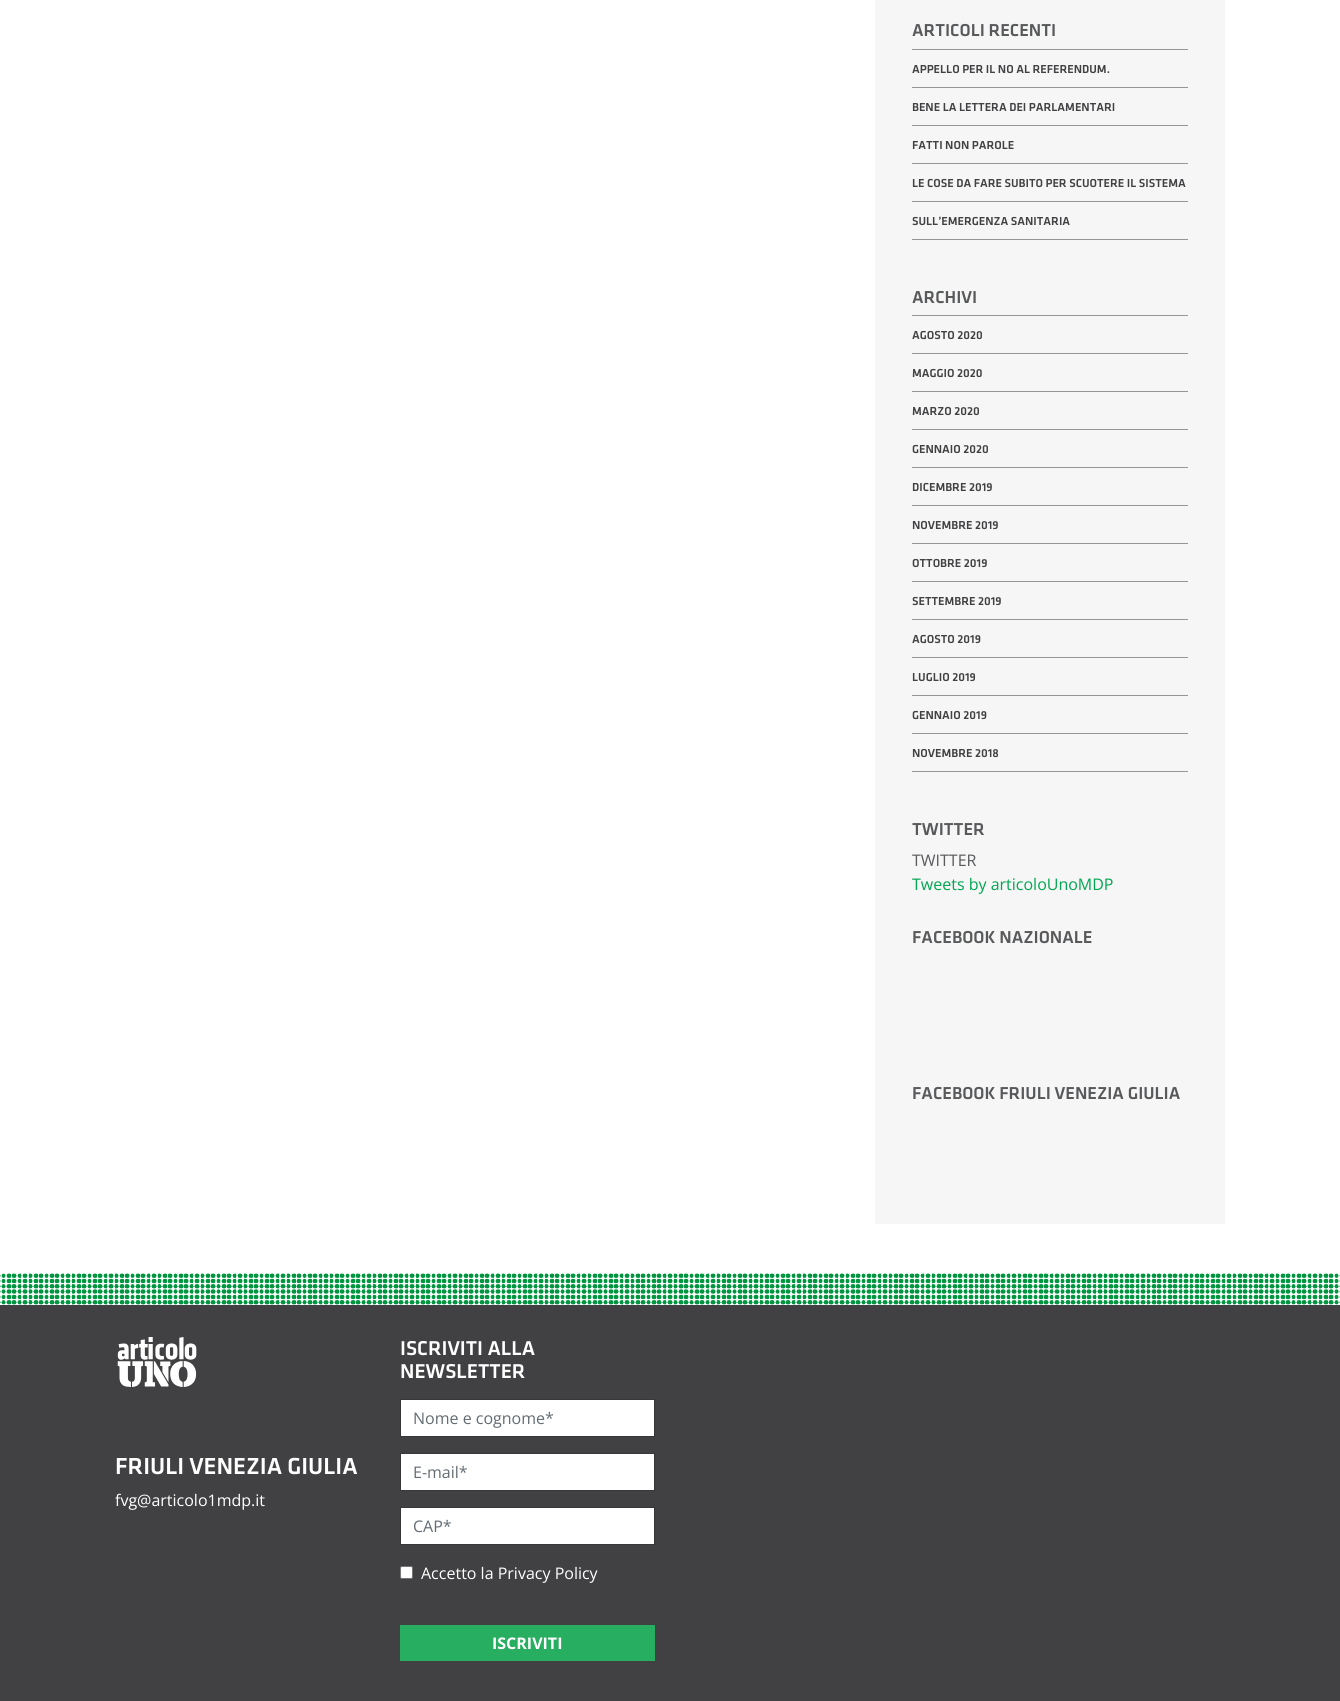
#include <cairo.h>
#include <math.h>
#include <stddef.h>

static cairo_t *c;
static void C(unsigned color){cairo_set_source_rgb(c, (color >> 16) / 255.0, (color >> 8 & 255) / 255.0, (color & 255) / 255.0);}
static void F(const char *family, double size, int italic, int bold){cairo_select_font_face(c, family, italic ? CAIRO_FONT_SLANT_ITALIC : CAIRO_FONT_SLANT_NORMAL,bold ? CAIRO_FONT_WEIGHT_BOLD : CAIRO_FONT_WEIGHT_NORMAL);cairo_set_font_size(c, size);}
static void T(double x, double y, const char *s){cairo_move_to(c, x, y);cairo_show_text(c, s);}
static void R(double x, double y, double w, double h){cairo_rectangle(c, x, y, w, h);cairo_fill(c);}
static void Q(double x, double y, double w, double h, double r){cairo_new_sub_path(c);cairo_arc(c, x + w - r, y + h - r, r, 0, M_PI / 2);cairo_arc(c, x + r, y + h - r, r, M_PI / 2, M_PI);cairo_arc(c, x + r, y + r, r, M_PI, 1.5 * M_PI);cairo_arc(c, x + w - r, y + r, r, 1.5 * M_PI, 2 * M_PI);cairo_close_path(c);}
static void I(const char *path, double x, double y, double w, double h){cairo_surface_t *image = cairo_image_surface_create_from_png(path);cairo_save(c);cairo_set_source_surface(c, image, x, y);cairo_rectangle(c, x, y, w, h);cairo_fill(c);cairo_restore(c);cairo_surface_destroy(image);}
int main(void) {
cairo_surface_t *surface = cairo_image_surface_create(CAIRO_FORMAT_RGB24, 1340, 1701);
c = cairo_create(surface);
cairo_font_options_t *options = cairo_font_options_create();
cairo_font_options_set_hint_metrics(options, CAIRO_HINT_METRICS_OFF);
cairo_font_options_set_hint_style(options, CAIRO_HINT_STYLE_NONE);
cairo_set_font_options(c, options);
cairo_set_miter_limit(c, 4);
C(0xffffff);
cairo_paint(c);
C(0xf6f6f6);
R(875,0,350,1224);
F("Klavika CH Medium",17.9,0,0);
C(0x58595b);
T(912,36,"ARTICOLI RECENTI");
C(0x939598);
R(912,49,276,1);
R(912,87,276,1);
F("Klavika CH Medium",12,0,0);
C(0x414042);
T(912,73,"APPELLO PER IL NO AL REFERENDUM.");
C(0x939598);
R(912,125,276,1);
C(0x414042);
T(912,111,"BENE LA LETTERA DEI PARLAMENTARI");
C(0x939598);
R(912,163,276,1);
C(0x414042);
T(912,149,"FATTI NON PAROLE");
C(0x939598);
R(912,201,276,1);
C(0x414042);
T(912,187,"LE COSE DA FARE SUBITO PER SCUOTERE IL SISTEMA");
C(0x939598);
R(912,239,276,1);
C(0x414042);
T(912,225,"SULL’EMERGENZA SANITARIA");
F("Klavika CH Medium",17.9,0,0);
C(0x58595b);
T(912,303,"ARCHIVI");
C(0x939598);
R(912,315,276,1);
R(912,353,276,1);
F("Klavika CH Medium",12,0,0);
C(0x414042);
T(912,339,"AGOSTO 2020");
C(0x939598);
R(912,391,276,1);
C(0x414042);
T(912,377,"MAGGIO 2020");
C(0x939598);
R(912,429,276,1);
C(0x414042);
T(912,415,"MARZO 2020");
C(0x939598);
R(912,467,276,1);
C(0x414042);
T(912,453,"GENNAIO 2020");
C(0x939598);
R(912,505,276,1);
C(0x414042);
T(912,491,"DICEMBRE 2019");
C(0x939598);
R(912,543,276,1);
C(0x414042);
T(912,529,"NOVEMBRE 2019");
C(0x939598);
R(912,581,276,1);
C(0x414042);
T(912,567,"OTTOBRE 2019");
C(0x939598);
R(912,619,276,1);
C(0x414042);
T(912,605,"SETTEMBRE 2019");
C(0x939598);
R(912,657,276,1);
C(0x414042);
T(912,643,"AGOSTO 2019");
C(0x939598);
R(912,695,276,1);
C(0x414042);
T(912,681,"LUGLIO 2019");
C(0x939598);
R(912,733,276,1);
C(0x414042);
T(912,719,"GENNAIO 2019");
C(0x939598);
R(912,771,276,1);
C(0x414042);
T(912,757,"NOVEMBRE 2018");
F("Klavika CH Medium",17.9,0,0);
C(0x58595b);
T(912,835,"TWITTER");
F("Open Sans",16,0,0);
T(912,866,"TWITTER");
C(0x00a651);
T(912,890,"Tweets by articoloUnoMDP");
F("Klavika CH Medium",17.9,0,0);
C(0x58595b);
T(912,943,"FACEBOOK NAZIONALE");
T(912,1099,"FACEBOOK FRIULI VENEZIA GIULIA");
I("1.png",0,1273,1340,32);
C(0x414042);
R(0,1305,1340,396);
I("2.png",117,1337,80,50);
F("Klavika CH Medium",24,0,0);
C(0xffffff);
T(115,1474,"FRIULI VENEZIA GIULIA");
F("Open Sans",16,0,0);
T(115,1506,"fvg@articolo1mdp.it");
F("Klavika CH Medium",20.75,0,0);
T(400,1355,"ISCRIVITI ALLA");
T(400,1378,"NEWSLETTER");
cairo_rectangle(c,400.5,1399.5,254,37);
cairo_fill_preserve(c);
C(0x373638);
cairo_set_line_width(c,1);
cairo_stroke(c);
F("Open Sans",16,0,0);
C(0x636c72);
T(413,1424,"Nome e cognome*");
C(0xffffff);
cairo_rectangle(c,400.5,1453.5,254,37);
cairo_fill_preserve(c);
C(0x373638);
cairo_stroke(c);
C(0x636c72);
T(413,1478,"E-mail*");
C(0xffffff);
cairo_rectangle(c,400.5,1507.5,254,37);
cairo_fill_preserve(c);
C(0x373638);
cairo_stroke(c);
C(0x636c72);
T(413,1532,"CAP*");
C(0xffffff);
Q(400.5,1566.5,12,12,1.5);
cairo_fill_preserve(c);
C(0x767676);
cairo_stroke(c);
C(0xffffff);
T(421,1579,"Accetto la Privacy Policy");
C(0x27ae60);
R(400,1625,255,36);
F("Open Sans",16,0,1);
C(0xffffff);
T(492,1649,"ISCRIVITI");
cairo_surface_write_to_png(surface, "o.png");
cairo_font_options_destroy(options);
cairo_destroy(c);
cairo_surface_destroy(surface);
return 0;
}
